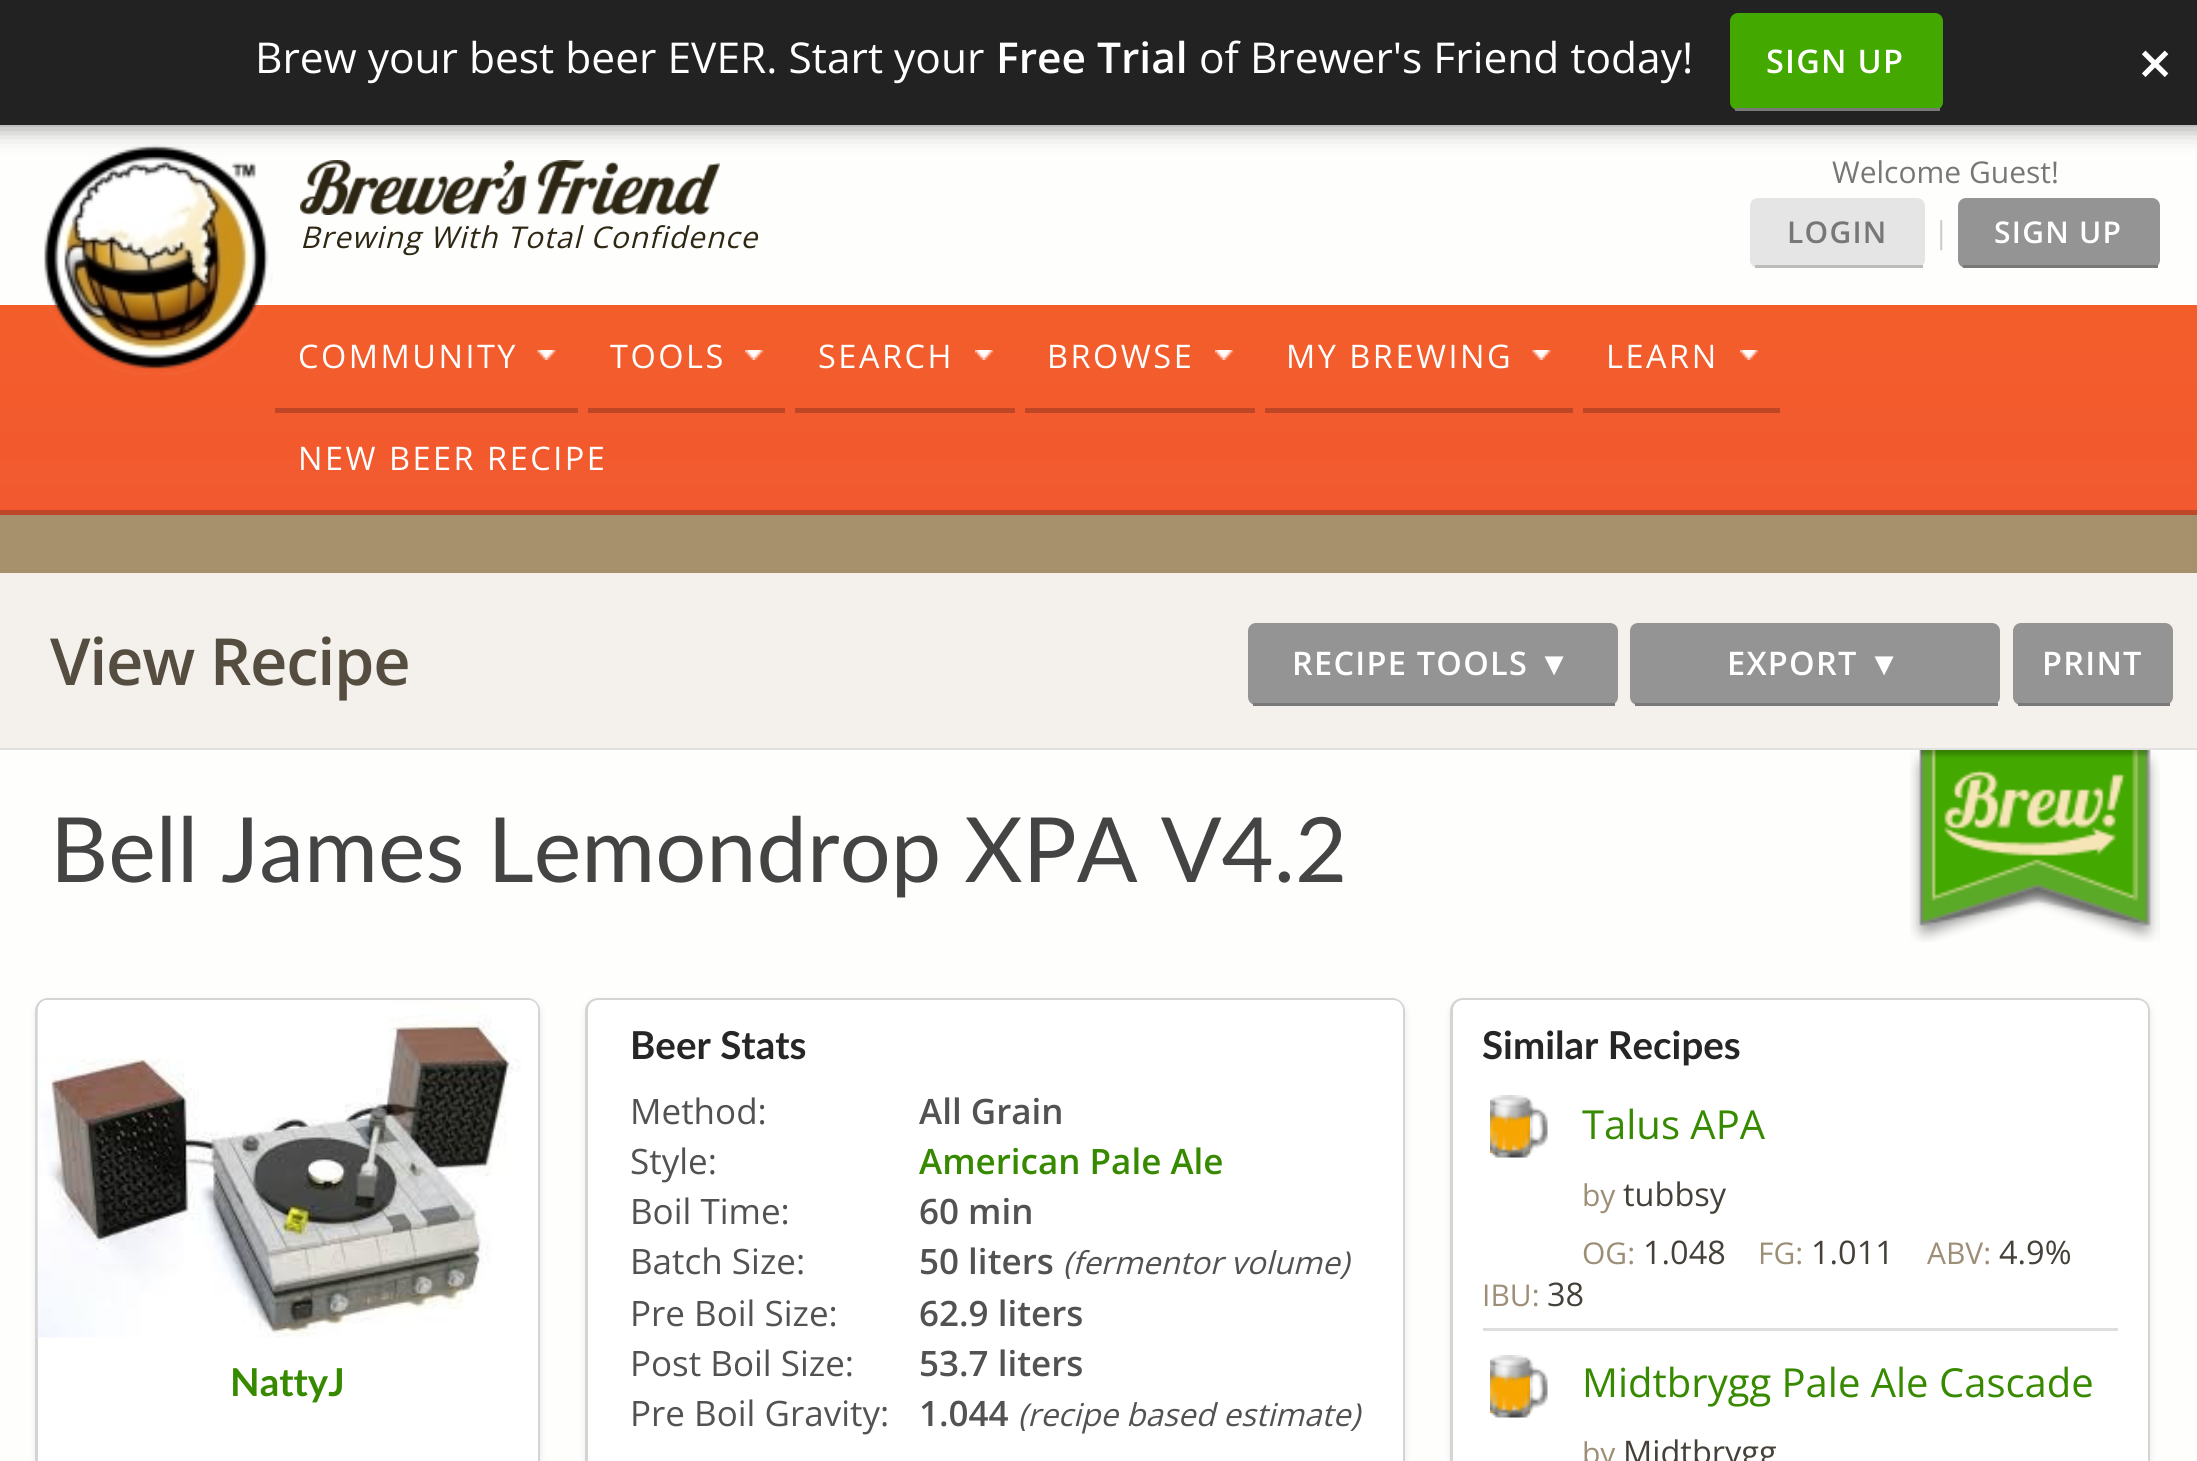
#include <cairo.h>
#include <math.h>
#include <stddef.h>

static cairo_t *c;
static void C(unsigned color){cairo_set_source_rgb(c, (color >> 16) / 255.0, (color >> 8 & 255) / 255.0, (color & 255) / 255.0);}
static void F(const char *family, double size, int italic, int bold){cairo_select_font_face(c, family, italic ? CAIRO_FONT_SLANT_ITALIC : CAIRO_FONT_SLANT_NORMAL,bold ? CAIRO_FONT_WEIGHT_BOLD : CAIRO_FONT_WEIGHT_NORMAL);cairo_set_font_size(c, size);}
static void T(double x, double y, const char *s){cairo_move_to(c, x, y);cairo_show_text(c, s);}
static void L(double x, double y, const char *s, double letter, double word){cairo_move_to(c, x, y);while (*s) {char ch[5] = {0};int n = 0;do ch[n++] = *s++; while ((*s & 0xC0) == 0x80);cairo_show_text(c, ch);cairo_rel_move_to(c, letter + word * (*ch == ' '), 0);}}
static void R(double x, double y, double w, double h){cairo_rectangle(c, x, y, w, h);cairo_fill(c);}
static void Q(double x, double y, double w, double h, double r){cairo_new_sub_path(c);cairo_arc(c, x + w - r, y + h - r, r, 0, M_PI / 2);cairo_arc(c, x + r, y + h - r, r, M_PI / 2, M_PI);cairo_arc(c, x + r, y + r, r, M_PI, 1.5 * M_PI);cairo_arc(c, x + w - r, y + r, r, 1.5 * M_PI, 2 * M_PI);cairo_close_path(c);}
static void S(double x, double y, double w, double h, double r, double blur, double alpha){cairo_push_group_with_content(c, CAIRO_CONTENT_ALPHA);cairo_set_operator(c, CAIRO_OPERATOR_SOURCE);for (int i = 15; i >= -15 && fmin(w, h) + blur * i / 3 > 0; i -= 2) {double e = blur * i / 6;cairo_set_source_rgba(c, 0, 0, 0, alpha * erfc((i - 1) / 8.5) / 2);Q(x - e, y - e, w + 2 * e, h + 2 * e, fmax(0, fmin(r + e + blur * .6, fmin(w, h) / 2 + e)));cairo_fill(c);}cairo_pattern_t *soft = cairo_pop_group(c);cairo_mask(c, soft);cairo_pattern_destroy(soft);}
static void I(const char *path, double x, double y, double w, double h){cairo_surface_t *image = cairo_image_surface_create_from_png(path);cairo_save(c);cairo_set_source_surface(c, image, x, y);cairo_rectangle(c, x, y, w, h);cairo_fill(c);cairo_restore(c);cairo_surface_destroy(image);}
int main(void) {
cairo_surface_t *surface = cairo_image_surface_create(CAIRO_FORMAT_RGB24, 2197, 1461);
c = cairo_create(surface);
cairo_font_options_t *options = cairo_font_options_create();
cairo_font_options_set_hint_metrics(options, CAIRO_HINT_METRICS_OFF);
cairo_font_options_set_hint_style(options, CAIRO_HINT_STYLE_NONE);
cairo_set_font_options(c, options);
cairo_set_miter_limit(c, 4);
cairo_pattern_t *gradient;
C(0xfefefd);
cairo_paint(c);
gradient = cairo_pattern_create_linear(1099,305,1099,510);
cairo_pattern_add_color_stop_rgba(gradient,0,0.953,0.365,0.165,1);
cairo_pattern_add_color_stop_rgba(gradient,1,0.949,0.349,0.188,1);
cairo_set_source(c,gradient);
cairo_pattern_destroy(gradient);
R(0,305,2197,205);
I("1.png",43,144,230,231);
I("2.png",300,160,420,55);
C(0x000000);
S(-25,-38,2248,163,0,12.5,.5);
C(0x222222);
R(0,0,2197,125);
F("Open Sans",42.5,0,0);
C(0xffffff);
T(255,73,"Brew your best beer EVER. Start your");
F("Open Sans SemiBold",42.5,0,0);
T(996,73,"Free Trial");
F("Open Sans",42.5,0,0);
T(1199,73,"of Brewer's Friend today!");
C(0x43a800);
Q(1730,13,213,97,8);
cairo_fill(c);
C(0x797979);
R(1735,108,205,3);
F("Open Sans SemiBold",32.5,0,0);
C(0xffffff);
L(1766,73,"SIGN UP",1.25,0);
F("Open Sans SemiBold",60,0,0);
T(2138,85,"×");
F("Open Sans",30,1,0);
C(0x2e2714);
L(300,248,"Brewing With Total Confidence",1,0);
F("Open Sans",30,0,0);
C(0x777777);
T(1832,183,"Welcome Guest!");
C(0xe5e5e5);
Q(1750,198,175,70,8);
cairo_fill(c);
C(0xbcbcbc);
R(1755,265,168,3);
F("Open Sans SemiBold",30,0,0);
C(0x777777);
L(1787,243,"LOGIN",1.25,0);
F("Open Sans",30,0,0);
C(0xcbcbcb);
T(1933,243,"|");
C(0x949494);
Q(1958,198,202,70,8);
cairo_fill(c);
C(0x797979);
R(1963,265,195,3);
F("Open Sans SemiBold",30,0,0);
C(0xffffff);
L(1994,243,"SIGN UP",1.25,0);
C(0xbf4626);
R(0,510,2197,5);
I("3.png",537,350,19,10);
R(275,408,303,5);
F("Open Sans",32.5,0,0);
C(0xffffff);
L(298,368,"COMMUNITY",2.5,0);
I("4.png",745,350,19,10);
C(0xbf4626);
R(588,408,197,5);
C(0xffffff);
L(610,368,"TOOLS",2.5,0);
I("4.png",975,350,19,10);
C(0xbf4626);
R(795,408,220,5);
C(0xffffff);
L(818,368,"SEARCH",2.5,0);
I("5.png",1215,350,19,10);
C(0xbf4626);
R(1025,408,230,5);
C(0xffffff);
L(1047,368,"BROWSE",2.5,0);
I("3.png",1532,350,19,10);
C(0xbf4626);
R(1265,408,308,5);
C(0xffffff);
L(1286,368,"MY BREWING",2.5,0);
I("4.png",1740,350,19,10);
C(0xbf4626);
R(1583,408,197,5);
C(0xffffff);
L(1606,368,"LEARN",2.5,0);
L(298,470,"NEW BEER RECIPE",2.5,0);
C(0xa7916d);
R(0,515,2197,58);
C(0xf4f1ec);
R(0,573,2197,175);
C(0xe1e1e1);
R(0,748,2197,2);
F("Open Sans SemiBold",65,0,0);
C(0x554d3f);
L(50,685,"View Recipe",-1.25,0);
C(0x949494);
Q(1248,623,370,82,8);
cairo_fill(c);
C(0x797979);
R(1253,703,362,3);
F("Open Sans SemiBold",32.5,0,0);
C(0xffffff);
L(1292,675,"RECIPE TOOLS",1.25,0);
F("Liberation Sans",32.5,0,1);
L(1538,675,"▼",1.25,0);
C(0x949494);
Q(1630,623,370,82,8);
cairo_fill(c);
C(0x797979);
R(1635,703,363,3);
F("Open Sans SemiBold",32.5,0,0);
C(0xffffff);
L(1727,675,"EXPORT",1.25,0);
F("Liberation Sans",32.5,0,1);
L(1868,675,"▼",1.25,0);
C(0x949494);
Q(2013,623,160,82,8);
cairo_fill(c);
C(0x797979);
R(2018,703,152,3);
F("Open Sans SemiBold",32.5,0,0);
C(0xffffff);
L(2042,675,"PRINT",1.25,0);
F("Lato",90,0,0);
C(0x444444);
T(50,882,"Bell James Lemondrop XPA V4.2");
I("6.png",1910,750,250,192);
Q(36.5,999.5,502,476,11.5);
C(0xd4d4d5);
cairo_set_line_width(c,3);
cairo_stroke(c);
C(0xd4d4d5);
S(38,1003,500,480,10,4,1);
C(0xffffff);
Q(38,1000,500,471,10);
cairo_fill(c);
cairo_new_path(c);
cairo_move_to(c,48,1000);
cairo_line_to(c,528,1000);
cairo_curve_to(c,533.5,1000,538,1004.5,538,1010);
cairo_line_to(c,538,1338);
cairo_line_to(c,38,1338);
cairo_line_to(c,38,1010);
cairo_curve_to(c,38,1004.5,42.5,1000,48,1000);
cairo_close_path(c);
cairo_fill(c);
I("7.png",37,1000,484,338);
F("Lato",38.5,0,1);
C(0x378a00);
T(230,1396,"NattyJ");
Q(586.5,999.5,817,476,11.5);
C(0xd4d4d5);
cairo_stroke(c);
C(0xd4d4d5);
S(588,1003,815,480,10,4,1);
C(0xffffff);
Q(588,1000,815,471,10);
cairo_fill(c);
C(0x262626);
T(630,1059,"Beer Stats");
F("Open Sans",35,0,0);
C(0x525252);
T(630,1124,"Method:");
F("Open Sans SemiBold",35,0,0);
T(919,1124,"All Grain");
F("Open Sans",35,0,0);
T(630,1174,"Style:");
F("Open Sans SemiBold",35,0,0);
C(0x378a00);
T(919,1174,"American Pale Ale");
F("Open Sans",35,0,0);
C(0x525252);
T(630,1224,"Boil Time:");
F("Open Sans SemiBold",35,0,0);
T(919,1224,"60 min");
F("Open Sans",35,0,0);
T(630,1274,"Batch Size:");
F("Open Sans SemiBold",35,0,0);
T(919,1274,"50 liters");
F("Open Sans",31.5,1,0);
T(1063,1274,"(fermentor volume)");
F("Open Sans",35,0,0);
T(630,1326,"Pre Boil Size:");
F("Open Sans SemiBold",35,0,0);
T(919,1326,"62.9 liters");
F("Open Sans",35,0,0);
T(630,1376,"Post Boil Size:");
F("Open Sans SemiBold",35,0,0);
T(919,1376,"53.7 liters");
F("Open Sans",35,0,0);
T(630,1426,"Pre Boil Gravity:");
F("Open Sans SemiBold",35,0,0);
T(919,1426,"1.044");
F("Open Sans",31.5,1,0);
T(1018,1426,"(recipe based estimate)");
Q(1451.5,999.5,697,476,11.5);
C(0xd4d4d5);
cairo_stroke(c);
C(0xd4d4d5);
S(1453,1003,695,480,10,4,1);
C(0xffffff);
Q(1453,1000,695,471,10);
cairo_fill(c);
F("Lato",38.5,0,1);
C(0x262626);
T(1482,1059,"Similar Recipes");
C(0xf8a600);
R(1490,1110,40,43);
I("8.png",1490,1095,58,63);
F("Open Sans",40,0,0);
C(0x378a00);
T(1582,1139,"Talus APA");
F("Open Sans",30,0,0);
C(0x9d8f77);
T(1582,1206,"by");
F("Open Sans",32.5,0,0);
C(0x45413a);
T(1623,1206,"tubbsy");
F("Open Sans",30,0,0);
C(0x9d8f77);
T(1582,1264,"OG:");
F("Open Sans",32.5,0,0);
C(0x45413a);
T(1643,1264,"1.048");
F("Open Sans",30,0,0);
C(0x9d8f77);
T(1758,1264,"FG:");
F("Open Sans",32.5,0,0);
C(0x45413a);
T(1811,1264,"1.011");
F("Open Sans",30,0,0);
C(0x9d8f77);
T(1927,1264,"ABV:");
F("Open Sans",32.5,0,0);
C(0x45413a);
T(1999,1264,"4.9%");
F("Open Sans",30,0,0);
C(0x9d8f77);
T(1482,1306,"IBU:");
F("Open Sans",32.5,0,0);
C(0x45413a);
T(1547,1306,"38");
C(0xdedede);
R(1483,1328,635,3);
C(0xf8a600);
R(1490,1370,40,43);
I("8.png",1490,1355,58,63);
F("Open Sans",40,0,0);
C(0x378a00);
T(1582,1397,"Midtbrygg Pale Ale Cascade");
F("Open Sans",30,0,0);
C(0x9d8f77);
T(1582,1464,"by");
F("Open Sans",32.5,0,0);
C(0x45413a);
T(1623,1464,"Midtbrygg");
cairo_surface_write_to_png(surface, "o.png");
cairo_font_options_destroy(options);
cairo_destroy(c);
cairo_surface_destroy(surface);
return 0;
}
